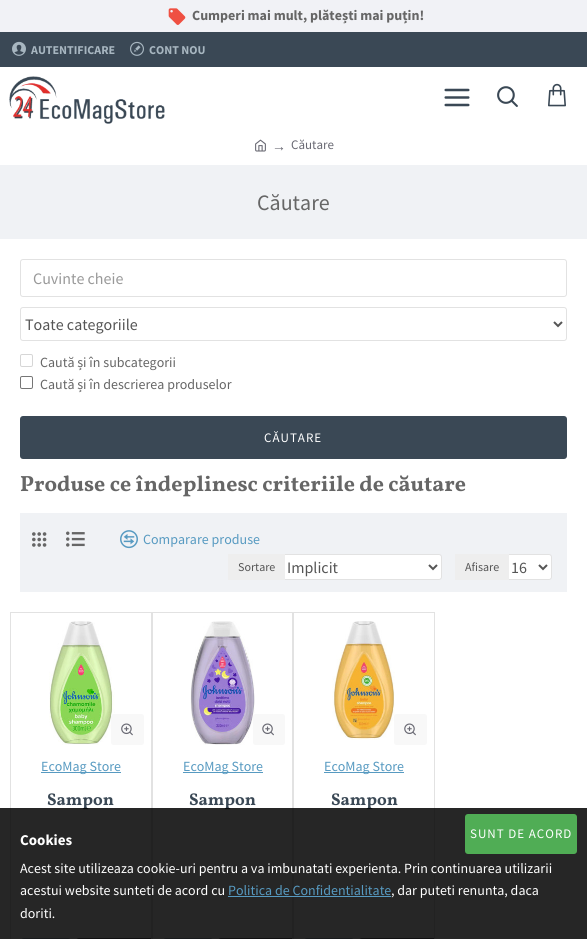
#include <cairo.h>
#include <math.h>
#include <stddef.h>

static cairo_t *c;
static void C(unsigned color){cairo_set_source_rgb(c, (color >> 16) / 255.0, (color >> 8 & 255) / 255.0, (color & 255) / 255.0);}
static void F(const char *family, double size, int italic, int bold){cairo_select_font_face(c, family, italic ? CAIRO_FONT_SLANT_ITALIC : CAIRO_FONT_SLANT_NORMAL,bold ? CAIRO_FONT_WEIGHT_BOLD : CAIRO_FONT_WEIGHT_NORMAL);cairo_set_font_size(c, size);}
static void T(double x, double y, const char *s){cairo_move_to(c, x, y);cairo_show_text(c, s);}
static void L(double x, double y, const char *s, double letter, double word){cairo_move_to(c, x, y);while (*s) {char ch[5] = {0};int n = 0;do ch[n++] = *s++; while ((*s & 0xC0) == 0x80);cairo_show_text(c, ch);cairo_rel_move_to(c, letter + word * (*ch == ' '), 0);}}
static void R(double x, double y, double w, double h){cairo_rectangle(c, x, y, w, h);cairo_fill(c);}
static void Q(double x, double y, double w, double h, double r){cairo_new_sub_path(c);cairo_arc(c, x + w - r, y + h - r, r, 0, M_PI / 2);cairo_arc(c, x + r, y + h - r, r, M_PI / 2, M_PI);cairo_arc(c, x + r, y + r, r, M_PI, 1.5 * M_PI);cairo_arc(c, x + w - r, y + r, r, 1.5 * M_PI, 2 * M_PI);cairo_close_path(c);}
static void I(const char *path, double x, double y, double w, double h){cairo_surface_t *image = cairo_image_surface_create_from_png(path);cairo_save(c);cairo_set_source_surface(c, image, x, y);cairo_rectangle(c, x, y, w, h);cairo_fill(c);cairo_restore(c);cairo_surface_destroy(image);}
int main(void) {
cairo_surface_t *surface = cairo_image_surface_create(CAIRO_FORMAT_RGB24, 587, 939);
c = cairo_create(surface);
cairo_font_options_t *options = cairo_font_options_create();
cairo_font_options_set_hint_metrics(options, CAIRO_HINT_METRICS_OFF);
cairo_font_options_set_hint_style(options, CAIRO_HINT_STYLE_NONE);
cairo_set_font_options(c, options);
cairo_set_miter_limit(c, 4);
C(0xffffff);
cairo_paint(c);
C(0xf1f2f6);
R(0,0,587,32);
I("1.png",168,8,18,17);
F("Source Sans Pro",14,0,1);
C(0x666666);
T(192,20,"Cumperi mai mult, plătești mai puțin!");
C(0x3a4855);
R(0,32,587,35);
I("2.png",12,41,14,15);
F("Source Sans Pro",12,0,1);
C(0xa7b6c0);
T(31,54,"AUTENTIFICARE");
I("3.png",130,41,14,15);
T(149,54,"CONT NOU");
I("4.png",9,76,156,48);
I("5.png",444,88,26,19);
I("6.png",497,86,21,21);
I("7.png",548,83,18,24);
I("8.png",255,139,11,13);
F("Liberation Sans",14,0,0);
C(0x696973);
T(272,151,"→");
F("Source Sans Pro",13,0,0);
T(291,149,"Căutare");
C(0xf0f2f5);
R(0,165,587,74);
F("Source Sans Pro",22,0,0);
C(0x666666);
T(257,210,"Căutare");
Q(20.5,259.5,546,37,2.5);
C(0xe2e2e2);
cairo_set_line_width(c,1);
cairo_stroke(c);
F("Source Sans Pro",16,0,0);
C(0x999999);
T(33,284,"Cuvinte cheie");
Q(20.5,307.5,546,33,2.5);
C(0xe2e2e2);
cairo_stroke(c);
cairo_new_path(c);
cairo_move_to(c,554,322);
cairo_line_to(c,558,326);
cairo_line_to(c,562,322);
C(0x555555);
cairo_set_line_width(c,2);
cairo_stroke(c);
T(25,330,"Toate categoriile");
Q(20.5,354.5,12,12,1.5);
C(0xd6d6d6);
cairo_set_line_width(c,1);
cairo_stroke(c);
F("Source Sans Pro",14,0,0);
C(0x666666);
T(40,367,"Caută și în subcategorii");
Q(20.5,376.5,12,12,1.5);
C(0x767676);
cairo_stroke(c);
C(0x666666);
T(40,389,"Caută și în descrierea produselor");
C(0x3a4855);
Q(20,416,547,43,3);
cairo_fill(c);
F("Source Sans Pro",13,0,0);
C(0xffffff);
L(264,442,"CĂUTARE",1,0);
F("Vollkorn",22,0,1);
C(0x666666);
T(20,491,"Produse ce îndeplinesc criteriile de căutare");
C(0xf0f2f5);
R(20,513,547,79);
I("9.png",32,532,15,15);
I("10.png",66,531,19,16);
I("11.png",120,530,18,19);
F("Source Sans Pro",14,0,0);
C(0x579ac1);
T(143,544,"Comparare produse");
C(0xffffff);
Q(282.5,554.5,159,25,2.5);
cairo_fill_preserve(c);
C(0xe2e2e2);
cairo_stroke(c);
C(0xeeeeee);
R(228,554,57,26);
F("Source Sans Pro",12,0,0);
C(0x555555);
T(238,571,"Sortare");
cairo_new_path(c);
cairo_move_to(c,429,565);
cairo_line_to(c,433,569);
cairo_line_to(c,437,565);
cairo_set_line_width(c,2);
cairo_stroke(c);
F("Source Sans Pro",16,0,0);
T(287,573,"Implicit");
C(0xffffff);
Q(506.5,554.5,45,25,2.5);
cairo_fill_preserve(c);
C(0xe2e2e2);
cairo_set_line_width(c,1);
cairo_stroke(c);
C(0xeeeeee);
R(455,554,54,26);
F("Source Sans Pro",12,0,0);
C(0x555555);
T(465,571,"Afisare");
cairo_new_path(c);
cairo_move_to(c,539,565);
cairo_line_to(c,543,569);
cairo_line_to(c,547,565);
cairo_set_line_width(c,2);
cairo_stroke(c);
F("Source Sans Pro",16,0,0);
T(511,573,"16");
cairo_rectangle(c,10.5,612.5,141,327);
C(0xe2e2e2);
cairo_set_line_width(c,1);
cairo_stroke(c);
I("12.png",49,621,66,124);
C(0xf8f8f8);
Q(111,714,33,31,2.5);
cairo_fill(c);
I("13.png",121,723,12,13);
C(0x579ac1);
R(41,772,80,1);
F("Source Sans Pro",14,0,0);
T(41,771,"EcoMag Store");
F("Vollkorn",17,0,1);
C(0x3a4855);
T(47,805,"Sampon");
Q(21.5,938.5,49,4,2.5);
C(0xa7b6c0);
cairo_stroke(c);
cairo_save(c);
cairo_rectangle(c,11,613,140,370);
cairo_clip(c);
Q(76.5,938.5,120,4,2.5);
C(0x696973);
cairo_stroke(c);
cairo_restore(c);
cairo_rectangle(c,152.5,612.5,140,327);
C(0xe2e2e2);
cairo_stroke(c);
I("14.png",190,621,65,124);
C(0xf8f8f8);
Q(253,714,32,31,2.5);
cairo_fill(c);
I("15.png",262,723,12,13);
C(0x579ac1);
R(183,772,80,1);
F("Source Sans Pro",14,0,0);
T(183,771,"EcoMag Store");
F("Vollkorn",17,0,1);
C(0x3a4855);
T(189,805,"Sampon");
Q(163.5,938.5,49,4,2.5);
C(0xa7b6c0);
cairo_stroke(c);
cairo_save(c);
cairo_rectangle(c,153,613,139,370);
cairo_clip(c);
Q(218.5,938.5,119,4,2.5);
C(0x696973);
cairo_stroke(c);
cairo_restore(c);
cairo_rectangle(c,293.5,612.5,141,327);
C(0xe2e2e2);
cairo_stroke(c);
I("16.png",332,621,63,119);
C(0xf8f8f8);
Q(394,714,33,31,2.5);
cairo_fill(c);
I("17.png",404,723,12,13);
C(0x579ac1);
R(324,772,80,1);
F("Source Sans Pro",14,0,0);
T(324,771,"EcoMag Store");
F("Vollkorn",17,0,1);
C(0x3a4855);
T(331,805,"Sampon");
Q(304.5,938.5,49,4,2.5);
C(0xa7b6c0);
cairo_stroke(c);
cairo_save(c);
cairo_rectangle(c,294,613,140,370);
cairo_clip(c);
Q(359.5,938.5,120,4,2.5);
C(0x696973);
cairo_stroke(c);
cairo_restore(c);
cairo_set_source_rgba(c,0,0,0,0.85);
R(0,808,587,131);
C(0x50ad55);
Q(465,814,112,40,3);
cairo_fill(c);
F("Source Sans Pro",13,0,0);
C(0xffffff);
L(470,838,"SUNT DE ACORD",1,0);
F("Source Sans Pro",15,0,1);
T(20,845,"Cookies");
F("Source Sans Pro",14,0,0);
T(20,873,"Acest site utilizeaza cookie-uri pentru a va imbunatati experienta. Prin continuarea utilizarii");
T(20,895,"acestui website sunteti de acord cu");
C(0x579ac1);
T(228,895,"Politica de Confidentialitate");
R(228,896,163,1);
C(0xffffff);
T(391,895,", dar puteti renunta, daca");
T(20,918,"doriti.");
cairo_surface_write_to_png(surface, "o.png");
cairo_font_options_destroy(options);
cairo_destroy(c);
cairo_surface_destroy(surface);
return 0;
}
